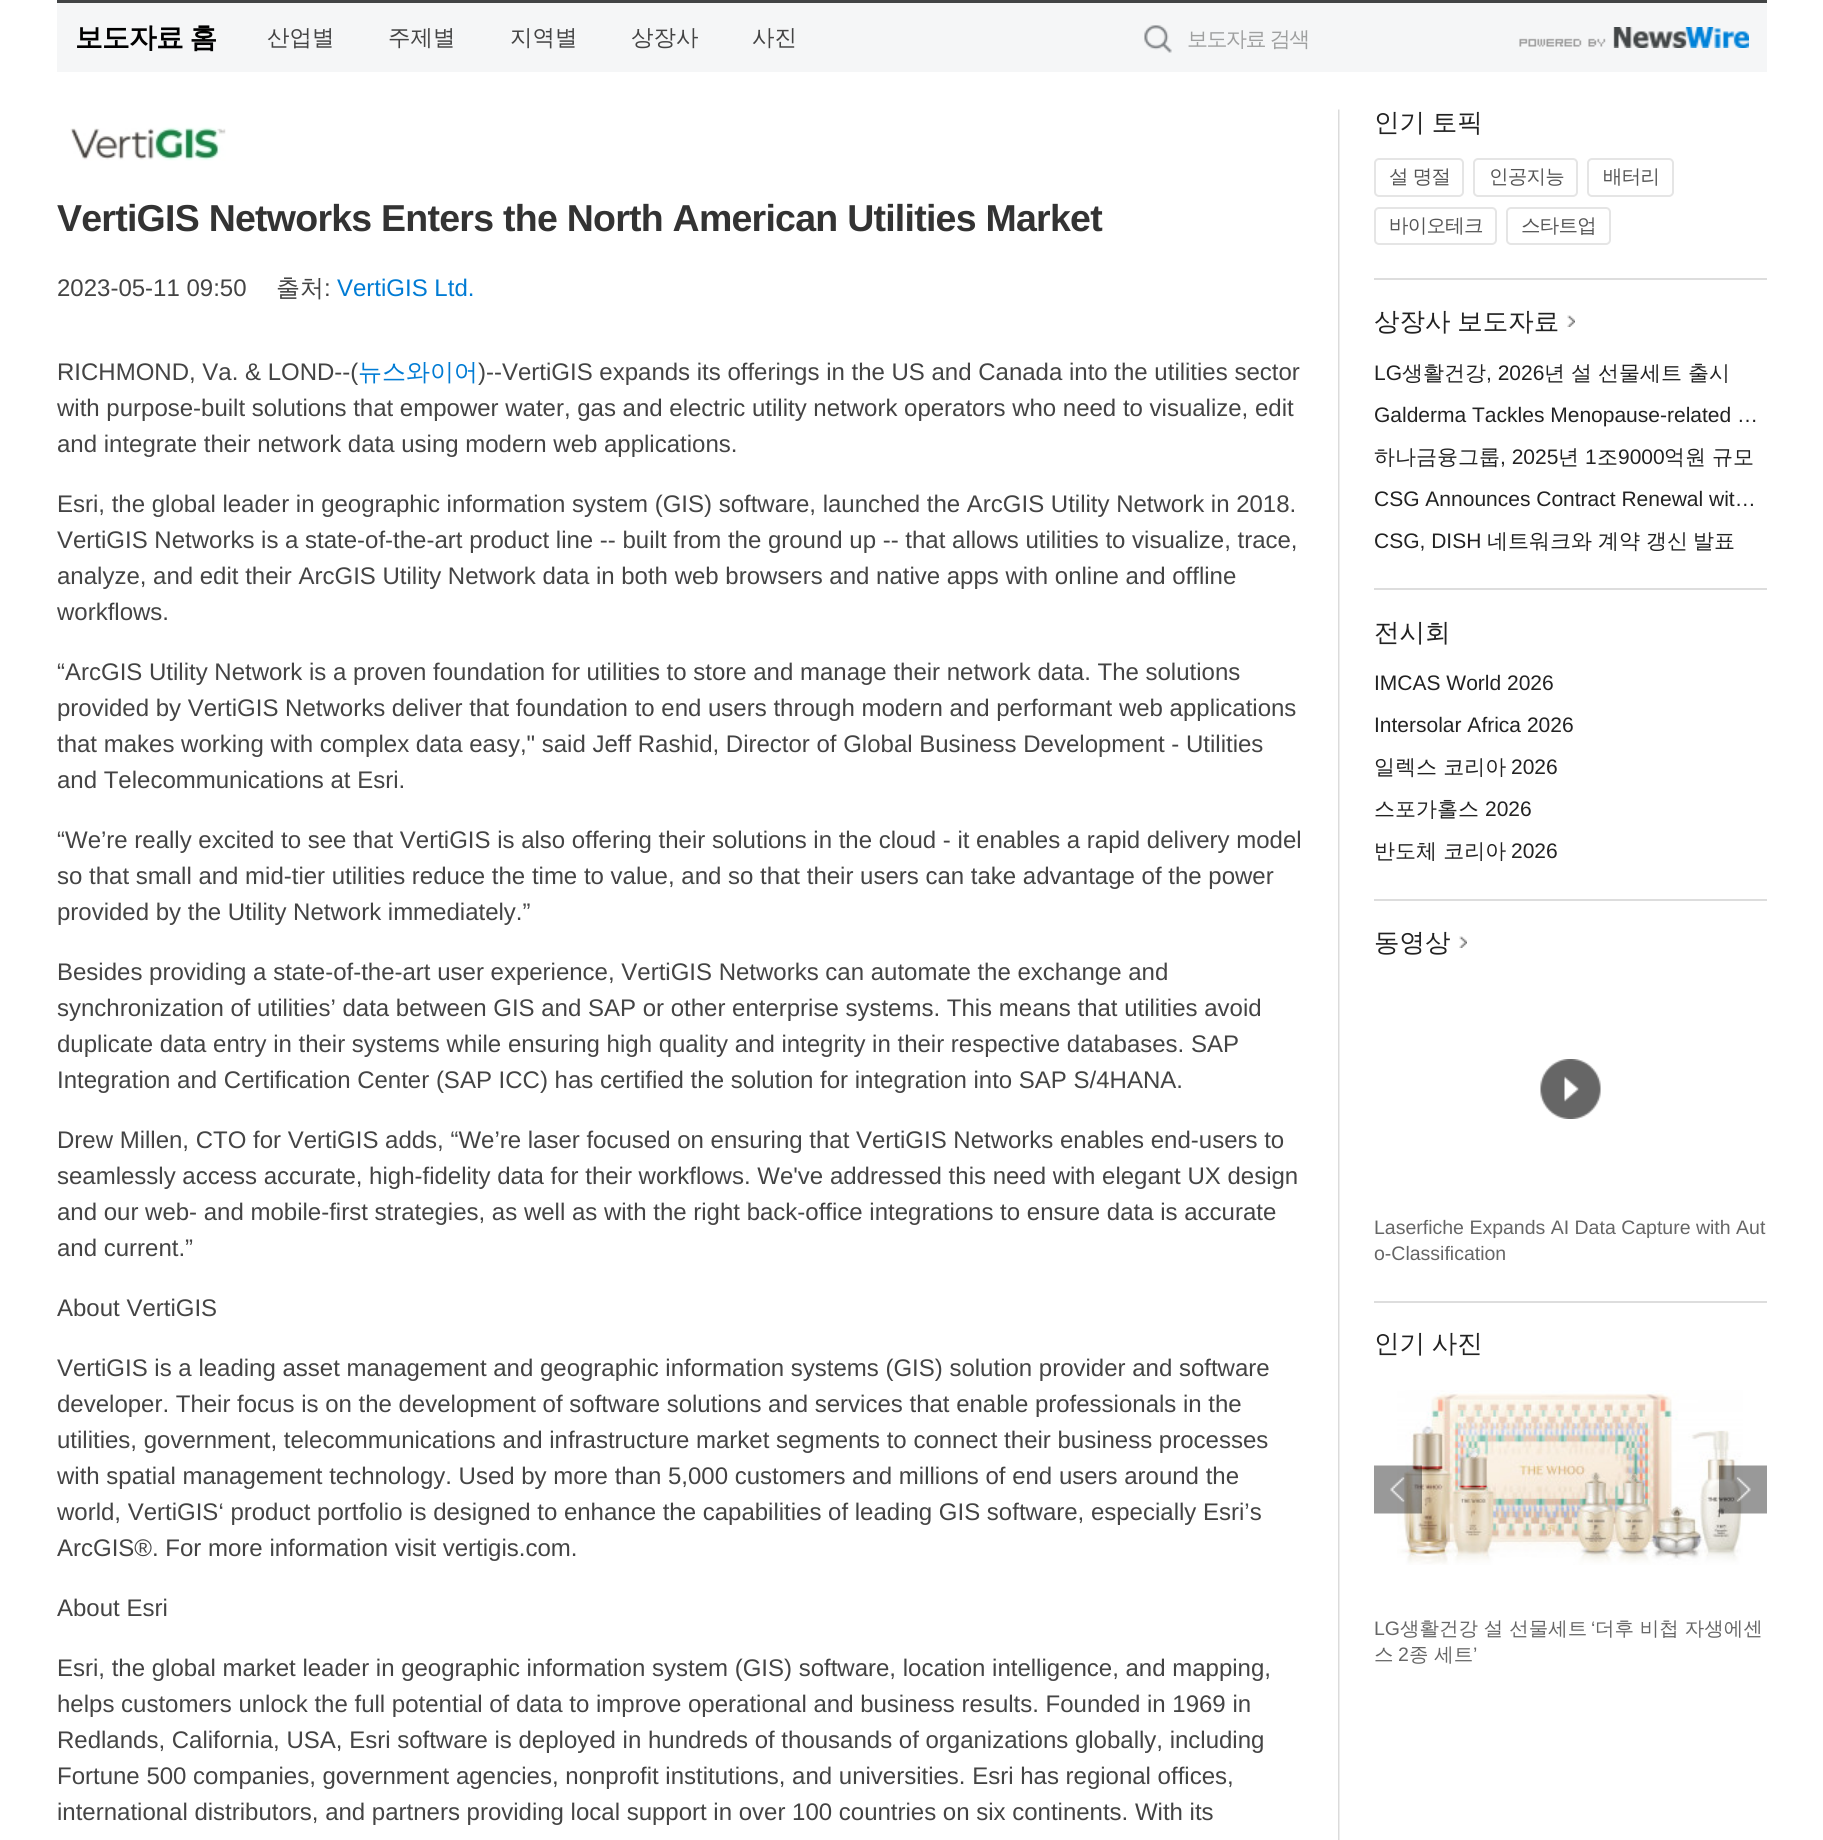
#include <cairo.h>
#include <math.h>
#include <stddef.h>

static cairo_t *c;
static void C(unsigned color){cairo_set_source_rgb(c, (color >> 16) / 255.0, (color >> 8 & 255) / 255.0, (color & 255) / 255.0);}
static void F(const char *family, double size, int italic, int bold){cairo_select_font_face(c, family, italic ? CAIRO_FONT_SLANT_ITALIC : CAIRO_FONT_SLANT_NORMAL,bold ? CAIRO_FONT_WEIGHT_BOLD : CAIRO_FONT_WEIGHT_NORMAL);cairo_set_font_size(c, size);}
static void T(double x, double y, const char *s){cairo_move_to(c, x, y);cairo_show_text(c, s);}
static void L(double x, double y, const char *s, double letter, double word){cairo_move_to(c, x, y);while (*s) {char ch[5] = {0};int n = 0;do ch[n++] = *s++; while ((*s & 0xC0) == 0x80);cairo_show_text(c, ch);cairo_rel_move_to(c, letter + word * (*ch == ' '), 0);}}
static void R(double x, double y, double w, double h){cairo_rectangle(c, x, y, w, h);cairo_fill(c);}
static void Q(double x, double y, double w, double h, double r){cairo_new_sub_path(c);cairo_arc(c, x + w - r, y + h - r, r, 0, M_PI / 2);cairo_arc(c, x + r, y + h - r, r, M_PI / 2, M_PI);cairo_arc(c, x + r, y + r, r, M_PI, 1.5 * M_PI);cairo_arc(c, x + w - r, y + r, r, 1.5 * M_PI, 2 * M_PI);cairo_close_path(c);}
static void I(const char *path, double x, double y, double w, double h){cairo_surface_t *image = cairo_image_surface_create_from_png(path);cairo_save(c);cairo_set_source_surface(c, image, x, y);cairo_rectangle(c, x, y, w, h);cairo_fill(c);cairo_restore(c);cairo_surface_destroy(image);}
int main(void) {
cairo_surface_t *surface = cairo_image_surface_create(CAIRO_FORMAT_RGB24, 1823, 1840);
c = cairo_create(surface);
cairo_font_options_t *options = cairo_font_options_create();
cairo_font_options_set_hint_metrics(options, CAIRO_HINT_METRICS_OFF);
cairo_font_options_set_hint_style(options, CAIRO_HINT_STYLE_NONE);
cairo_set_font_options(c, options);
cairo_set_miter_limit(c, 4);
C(0xffffff);
cairo_paint(c);
C(0xf5f6f7);
R(57,3,1710,69);
C(0x424445);
R(57,0,1710,3);
F("WenQuanYi Zen Hei",27.75,0,1);
C(0x000000);
L(75,47,"보도자료 홈",-.75,-1);
F("WenQuanYi Zen Hei Medium",22.5,0,0);
C(0x444444);
T(267,45,"산업별");
T(388,45,"주제별");
T(510,45,"지역별");
T(631,45,"상장사");
T(752,45,"사진");
I("1.png",1144,25,28,28);
F("WenQuanYi Zen Hei Medium",21,0,0);
C(0x9fa0a0);
L(1187,46,"보도자료 검색",-1.5,0);
I("2.png",1519,27,230,21);
I("3.png",1338,109,2,1731);
I("4.png",70,127,156,34);
F("Liberation Sans",37.5,0,1);
C(0x333333);
L(57,231,"VertiGIS Networks Enters the North American Utilities Market",-.75,0);
F("Liberation Sans",24,0,0);
C(0x444444);
T(57,296,"2023-05-11 09:50");
F("WenQuanYi Zen Hei Medium",24,0,0);
T(276,296,"출처");
F("Liberation Sans",24,0,0);
T(324,296,":");
C(0x007bd4);
T(337,296,"VertiGIS Ltd.");
C(0x444444);
T(57,380,"RICHMOND, Va. & LOND--(");
F("WenQuanYi Zen Hei Medium",24,0,0);
C(0x007bd4);
T(358,380,"뉴스와이어");
F("Liberation Sans",24,0,0);
C(0x444444);
T(478,380,")--VertiGIS expands its offerings in the US and Canada into the utilities sector");
T(57,416,"with purpose-built solutions that empower water, gas and electric utility network operators who need to visualize, edit");
T(57,452,"and integrate their network data using modern web applications.");
T(57,512,"Esri, the global leader in geographic information system (GIS) software, launched the ArcGIS Utility Network in 2018.");
T(57,548,"VertiGIS Networks is a state-of-the-art product line -- built from the ground up -- that allows utilities to visualize, trace,");
T(57,584,"analyze, and edit their ArcGIS Utility Network data in both web browsers and native apps with online and offline");
T(57,620,"workflows.");
T(57,680,"“ArcGIS Utility Network is a proven foundation for utilities to store and manage their network data. The solutions");
T(57,716,"provided by VertiGIS Networks deliver that foundation to end users through modern and performant web applications");
T(57,752,"that makes working with complex data easy,\" said Jeff Rashid, Director of Global Business Development - Utilities");
T(57,788,"and Telecommunications at Esri.");
T(57,848,"“We’re really excited to see that VertiGIS is also offering their solutions in the cloud - it enables a rapid delivery model");
T(57,884,"so that small and mid-tier utilities reduce the time to value, and so that their users can take advantage of the power");
T(57,920,"provided by the Utility Network immediately.”");
T(57,980,"Besides providing a state-of-the-art user experience, VertiGIS Networks can automate the exchange and");
T(57,1016,"synchronization of utilities’ data between GIS and SAP or other enterprise systems. This means that utilities avoid");
T(57,1052,"duplicate data entry in their systems while ensuring high quality and integrity in their respective databases. SAP");
T(57,1088,"Integration and Certification Center (SAP ICC) has certified the solution for integration into SAP S/4HANA.");
T(57,1148,"Drew Millen, CTO for VertiGIS adds, “We’re laser focused on ensuring that VertiGIS Networks enables end-users to");
T(57,1184,"seamlessly access accurate, high-fidelity data for their workflows. We've addressed this need with elegant UX design");
T(57,1220,"and our web- and mobile-first strategies, as well as with the right back-office integrations to ensure data is accurate");
T(57,1256,"and current.”");
T(57,1316,"About VertiGIS");
T(57,1376,"VertiGIS is a leading asset management and geographic information systems (GIS) solution provider and software");
T(57,1412,"developer. Their focus is on the development of software solutions and services that enable professionals in the");
T(57,1448,"utilities, government, telecommunications and infrastructure market segments to connect their business processes");
T(57,1484,"with spatial management technology. Used by more than 5,000 customers and millions of end users around the");
T(57,1520,"world, VertiGIS‘ product portfolio is designed to enhance the capabilities of leading GIS software, especially Esri’s");
T(57,1556,"ArcGIS®. For more information visit vertigis.com.");
T(57,1616,"About Esri");
T(57,1676,"Esri, the global market leader in geographic information system (GIS) software, location intelligence, and mapping,");
T(57,1712,"helps customers unlock the full potential of data to improve operational and business results. Founded in 1969 in");
T(57,1748,"Redlands, California, USA, Esri software is deployed in hundreds of thousands of organizations globally, including");
T(57,1784,"Fortune 500 companies, government agencies, nonprofit institutions, and universities. Esri has regional offices,");
T(57,1820,"international distributors, and partners providing local support in over 100 countries on six continents. With its");
F("WenQuanYi Zen Hei Medium",25.5,0,0);
C(0x222222);
L(1374,131,"인기 토픽",0,-1);
Q(1375,159,88,37,4);
C(0xe5e5e5);
cairo_stroke(c);
F("WenQuanYi Zen Hei Medium",19.5,0,0);
C(0x555555);
L(1389,183,"설 명절",-.75,0);
Q(1474,159,103,37,4);
C(0xe5e5e5);
cairo_stroke(c);
C(0x555555);
L(1489,183,"인공지능",-.75,0);
Q(1588,159,85,37,4);
C(0xe5e5e5);
cairo_stroke(c);
C(0x555555);
L(1603,183,"배터리",-.75,0);
Q(1375,208,121,36,4);
C(0xe5e5e5);
cairo_stroke(c);
C(0x555555);
L(1389,232,"바이오테크",-.75,0);
Q(1507,208,103,36,4);
C(0xe5e5e5);
cairo_stroke(c);
C(0x555555);
L(1521,232,"스타트업",-.75,0);
C(0xdddddd);
R(1374,278,393,2);
F("WenQuanYi Zen Hei Medium",25.5,0,0);
C(0x222222);
L(1374,330,"상장사 보도자료",0,-1);
I("5.png",1567,315,8,12);
F("Liberation Sans",21,0,0);
T(1374,380,"LG");
F("WenQuanYi Zen Hei Medium",21,0,0);
T(1402,380,"생활건강");
F("Liberation Sans",21,0,0);
T(1486,380,", 2026");
F("WenQuanYi Zen Hei Medium",21,0,0);
T(1544,380,"년");
T(1571,380,"설");
T(1598,380,"선물세트");
T(1688,380,"출시");
F("Liberation Sans",21,0,0);
T(1374,422,"Galderma Tackles Menopause-related …");
F("WenQuanYi Zen Hei Medium",21,0,0);
T(1374,464,"하나금융그룹");
F("Liberation Sans",21,0,0);
T(1500,464,", 2025");
F("WenQuanYi Zen Hei Medium",21,0,0);
T(1558,464,"년");
F("Liberation Sans",21,0,0);
T(1585,464,"1");
F("WenQuanYi Zen Hei Medium",21,0,0);
T(1597,464,"조");
F("Liberation Sans",21,0,0);
T(1618,464,"9000");
F("WenQuanYi Zen Hei Medium",21,0,0);
T(1664,464,"억원");
T(1712,464,"규모");
F("Liberation Sans",21,0,0);
T(1374,506,"CSG Announces Contract Renewal wit…");
T(1374,548,"CSG, DISH");
F("WenQuanYi Zen Hei Medium",21,0,0);
T(1487,548,"네트워크와");
T(1598,548,"계약");
T(1646,548,"갱신");
T(1693,548,"발표");
C(0xdddddd);
R(1374,588,393,2);
F("WenQuanYi Zen Hei Medium",25.5,0,0);
C(0x222222);
T(1374,641,"전시회");
F("Liberation Sans",21,0,0);
T(1374,690,"IMCAS World 2026");
T(1374,732,"Intersolar Africa 2026");
F("WenQuanYi Zen Hei Medium",21,0,0);
T(1374,774,"일렉스 코리아");
F("Liberation Sans",21,0,0);
T(1511,774,"2026");
F("WenQuanYi Zen Hei Medium",21,0,0);
T(1374,816,"스포가홀스");
F("Liberation Sans",21,0,0);
T(1485,816,"2026");
F("WenQuanYi Zen Hei Medium",21,0,0);
T(1374,858,"반도체 코리아");
F("Liberation Sans",21,0,0);
T(1511,858,"2026");
C(0xdddddd);
R(1374,899,393,2);
F("WenQuanYi Zen Hei Medium",25.5,0,0);
C(0x222222);
T(1374,951,"동영상");
I("5.png",1459,936,8,12);
I("6.png",1540,1059,61,60);
F("Liberation Sans",19.5,0,0);
C(0x666666);
T(1374,1234,"Laserfiche Expands AI Data Capture with Aut");
T(1374,1260,"o-Classification");
C(0xdddddd);
R(1374,1301,393,2);
F("WenQuanYi Zen Hei Medium",25.5,0,0);
C(0x222222);
L(1374,1352,"인기 사진",0,-1);
I("7.png",1397,1390,346,175);
I("8.png",1374,1465,48,49);
I("9.png",1719,1465,48,49);
F("Liberation Sans",19.5,0,0);
C(0x666666);
T(1374,1635,"LG");
F("WenQuanYi Zen Hei Medium",19.5,0,0);
T(1400,1635,"생활건강 설 선물세트");
F("Liberation Sans",19.5,0,0);
T(1591,1635,"‘");
F("WenQuanYi Zen Hei Medium",19.5,0,0);
T(1595,1635,"더후 비첩 자생에센");
T(1374,1661,"스");
F("Liberation Sans",19.5,0,0);
T(1398,1661,"2");
F("WenQuanYi Zen Hei Medium",19.5,0,0);
T(1409,1661,"종 세트");
F("Liberation Sans",19.5,0,0);
T(1473,1661,"’");
cairo_surface_write_to_png(surface, "o.png");
cairo_font_options_destroy(options);
cairo_destroy(c);
cairo_surface_destroy(surface);
return 0;
}
